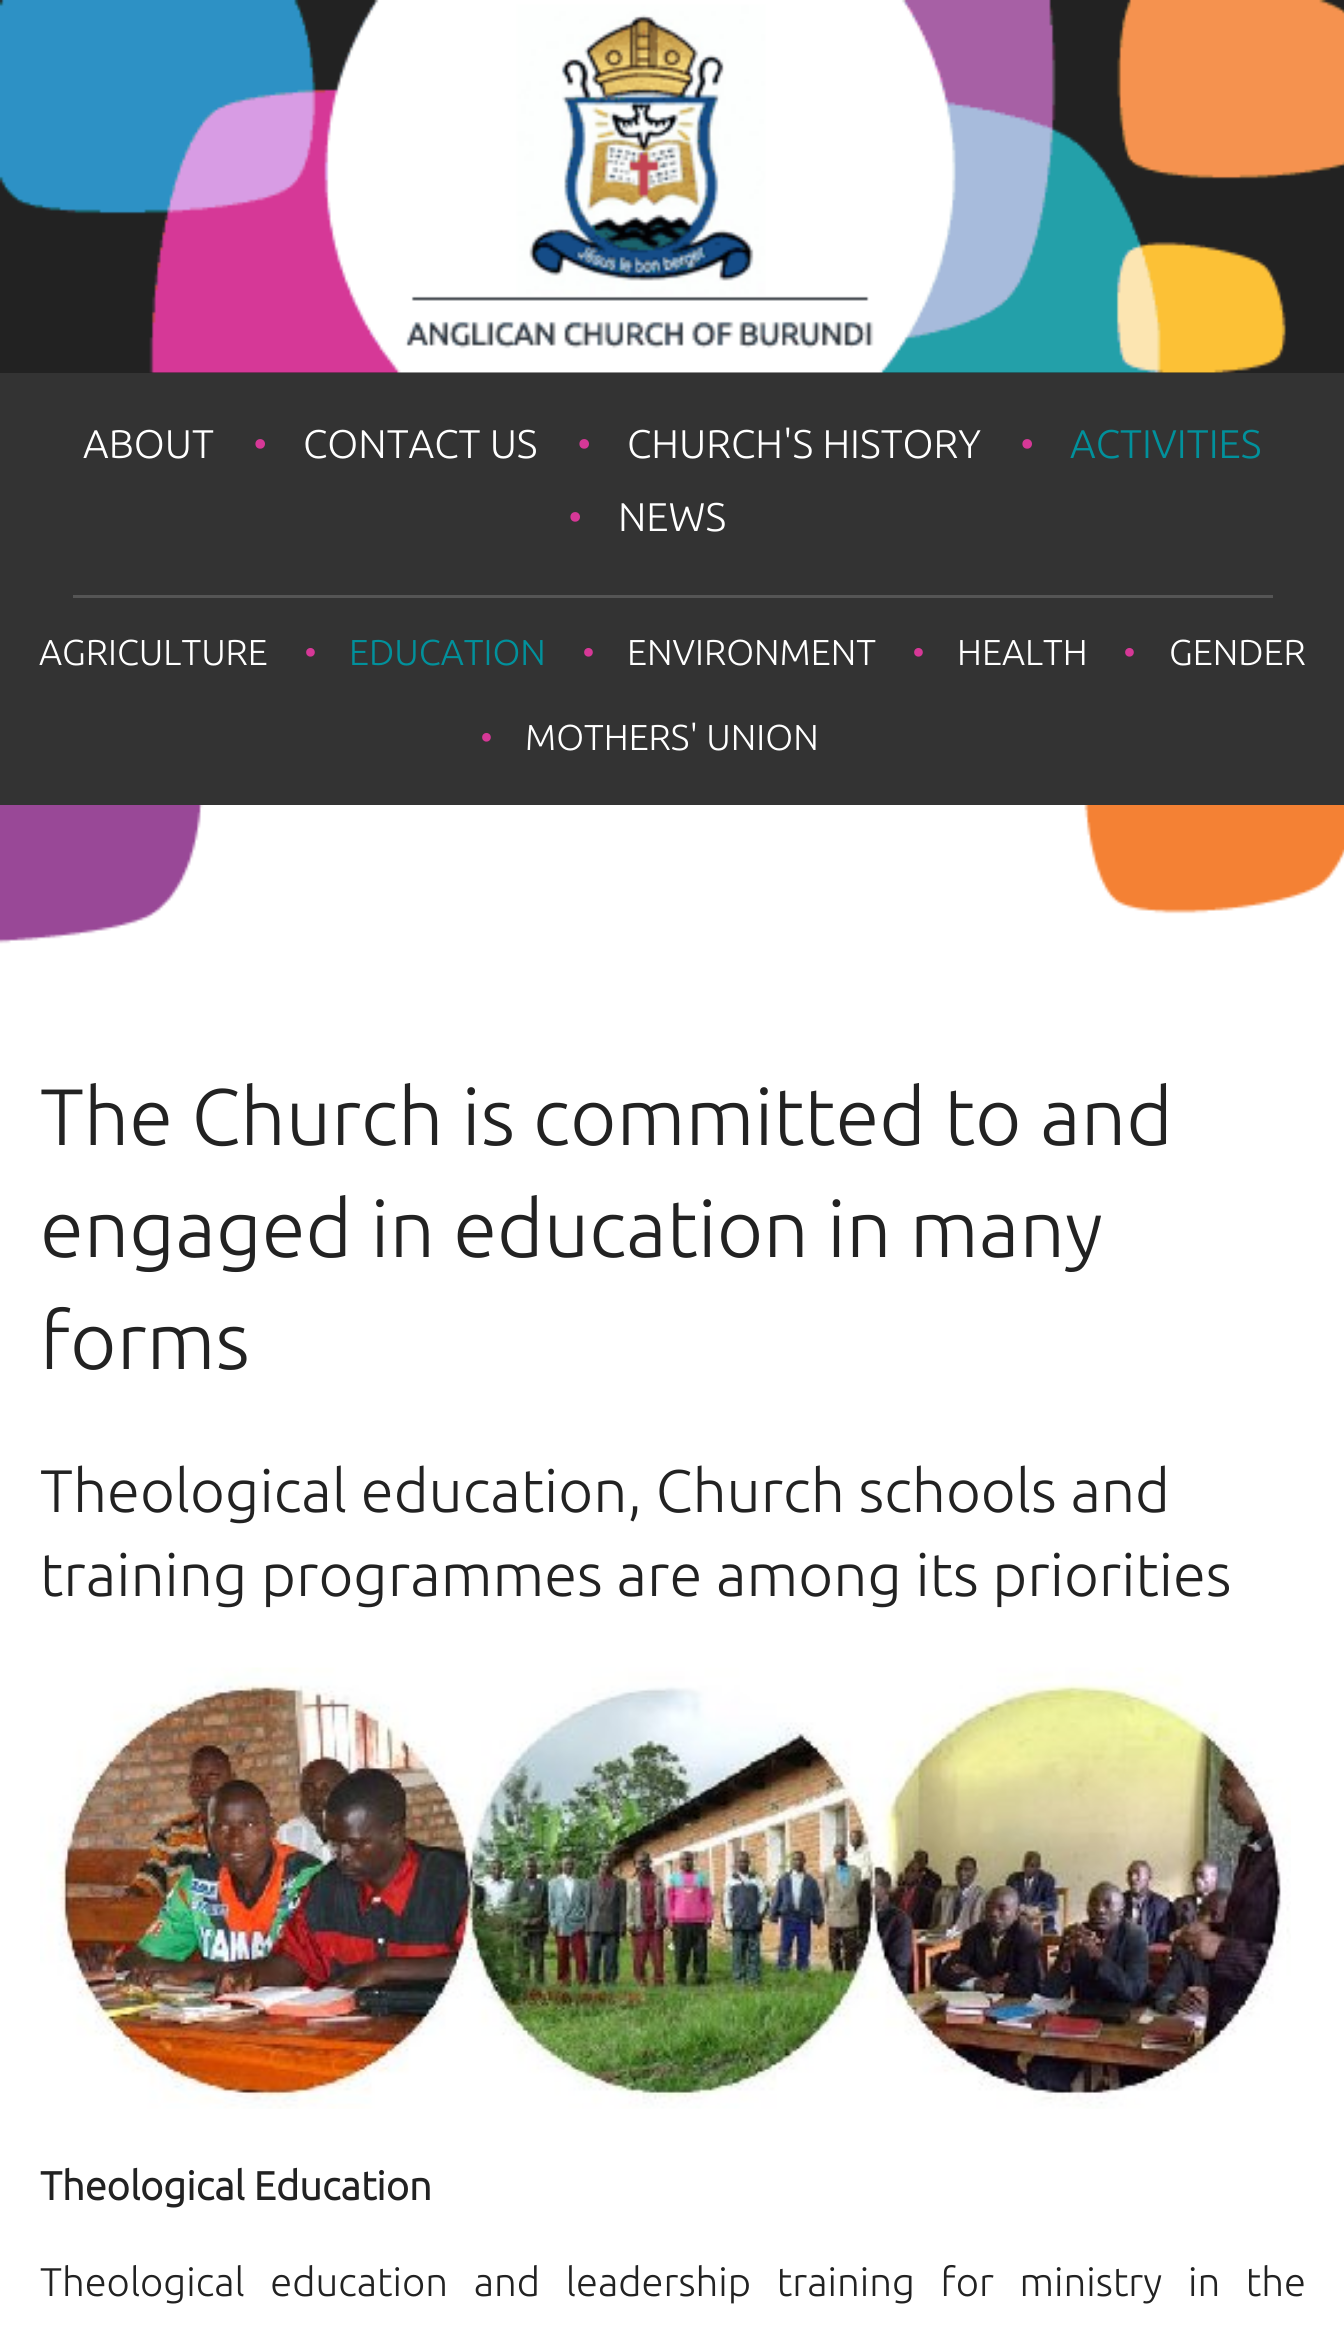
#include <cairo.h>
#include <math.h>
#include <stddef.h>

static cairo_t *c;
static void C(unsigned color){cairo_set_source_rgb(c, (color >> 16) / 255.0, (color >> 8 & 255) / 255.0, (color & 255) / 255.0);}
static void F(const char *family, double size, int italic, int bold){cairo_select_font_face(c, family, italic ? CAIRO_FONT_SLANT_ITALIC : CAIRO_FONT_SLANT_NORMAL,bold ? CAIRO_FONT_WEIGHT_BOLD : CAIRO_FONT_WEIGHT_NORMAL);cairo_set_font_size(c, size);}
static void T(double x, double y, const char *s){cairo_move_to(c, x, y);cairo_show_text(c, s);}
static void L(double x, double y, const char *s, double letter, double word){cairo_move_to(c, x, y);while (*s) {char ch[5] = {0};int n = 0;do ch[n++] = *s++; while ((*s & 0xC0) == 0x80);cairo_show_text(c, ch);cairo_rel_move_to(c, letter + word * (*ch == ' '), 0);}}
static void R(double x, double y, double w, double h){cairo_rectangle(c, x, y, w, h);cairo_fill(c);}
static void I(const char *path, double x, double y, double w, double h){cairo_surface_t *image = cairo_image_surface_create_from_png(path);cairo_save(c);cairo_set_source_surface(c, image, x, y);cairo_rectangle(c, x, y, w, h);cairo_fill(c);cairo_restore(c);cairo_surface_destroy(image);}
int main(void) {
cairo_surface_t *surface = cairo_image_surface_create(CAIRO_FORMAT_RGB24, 1344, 2342);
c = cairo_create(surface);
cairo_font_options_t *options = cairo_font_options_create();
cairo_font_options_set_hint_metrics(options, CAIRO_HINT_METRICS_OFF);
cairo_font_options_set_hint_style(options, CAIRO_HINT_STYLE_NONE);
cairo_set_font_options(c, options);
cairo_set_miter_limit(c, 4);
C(0xffffff);
cairo_paint(c);
C(0x222222);
R(0,372,1344,1);
I("1.png",0,0,1344,373);
C(0x333333);
R(0,373,1344,432);
F("Ubuntu Light",40,0,0);
C(0xffffff);
T(83,458,"ABOUT");
C(0xd63897);
T(253,458,"•");
C(0xffffff);
T(303,458,"CONTACT US");
C(0xd63897);
T(577,458,"•");
C(0xffffff);
T(627,458,"CHURCH'S HISTORY");
C(0xd63897);
T(1020,458,"•");
C(0x01919c);
T(1070,458,"ACTIVITIES");
C(0xd63897);
T(568,531,"•");
C(0xffffff);
T(618,531,"NEWS");
C(0x555555);
R(73,595,1200,3);
F("Ubuntu Light",36,0,0);
C(0xffffff);
T(39,665,"AGRICULTURE");
C(0xd63897);
T(304,665,"•");
C(0x01919c);
T(349,665,"EDUCATION");
C(0xd63897);
T(582,665,"•");
C(0xffffff);
T(627,665,"ENVIRONMENT");
C(0xd63897);
T(912,665,"•");
C(0xffffff);
T(957,665,"HEALTH");
C(0xd63897);
T(1123,665,"•");
C(0xffffff);
T(1169,665,"GENDER");
C(0xd63897);
T(480,750,"•");
C(0xffffff);
T(525,750,"MOTHERS' UNION");
I("2.png",0,805,1344,139);
F("Ubuntu Light",80,0,0);
C(0x222222);
T(40,1145,"The Church is committed to and");
T(40,1257,"engaged in education in many");
T(40,1369,"forms");
F("Ubuntu Light",60,0,0);
T(40,1512,"Theological education, Church schools and");
T(40,1596,"training programmes are among its priorities");
I("3.png",40,1667,1251,442);
F("Ubuntu",40,0,1);
T(40,2200,"Theological Education");
F("Ubuntu Light",40,0,0);
L(40,2296,"Theological education and leadership training for ministry in the",0,16.5);
cairo_surface_write_to_png(surface, "o.png");
cairo_font_options_destroy(options);
cairo_destroy(c);
cairo_surface_destroy(surface);
return 0;
}
